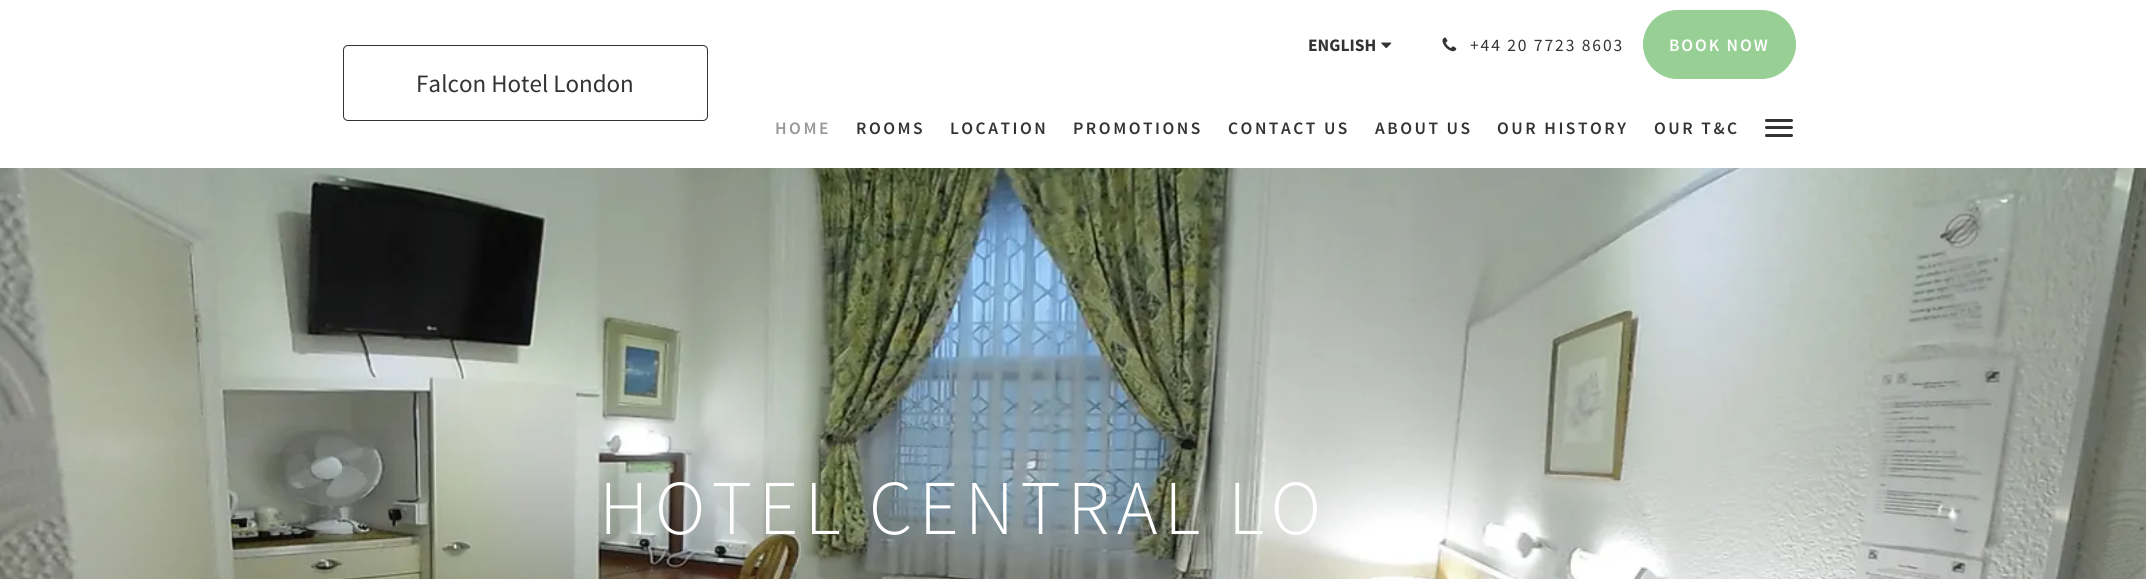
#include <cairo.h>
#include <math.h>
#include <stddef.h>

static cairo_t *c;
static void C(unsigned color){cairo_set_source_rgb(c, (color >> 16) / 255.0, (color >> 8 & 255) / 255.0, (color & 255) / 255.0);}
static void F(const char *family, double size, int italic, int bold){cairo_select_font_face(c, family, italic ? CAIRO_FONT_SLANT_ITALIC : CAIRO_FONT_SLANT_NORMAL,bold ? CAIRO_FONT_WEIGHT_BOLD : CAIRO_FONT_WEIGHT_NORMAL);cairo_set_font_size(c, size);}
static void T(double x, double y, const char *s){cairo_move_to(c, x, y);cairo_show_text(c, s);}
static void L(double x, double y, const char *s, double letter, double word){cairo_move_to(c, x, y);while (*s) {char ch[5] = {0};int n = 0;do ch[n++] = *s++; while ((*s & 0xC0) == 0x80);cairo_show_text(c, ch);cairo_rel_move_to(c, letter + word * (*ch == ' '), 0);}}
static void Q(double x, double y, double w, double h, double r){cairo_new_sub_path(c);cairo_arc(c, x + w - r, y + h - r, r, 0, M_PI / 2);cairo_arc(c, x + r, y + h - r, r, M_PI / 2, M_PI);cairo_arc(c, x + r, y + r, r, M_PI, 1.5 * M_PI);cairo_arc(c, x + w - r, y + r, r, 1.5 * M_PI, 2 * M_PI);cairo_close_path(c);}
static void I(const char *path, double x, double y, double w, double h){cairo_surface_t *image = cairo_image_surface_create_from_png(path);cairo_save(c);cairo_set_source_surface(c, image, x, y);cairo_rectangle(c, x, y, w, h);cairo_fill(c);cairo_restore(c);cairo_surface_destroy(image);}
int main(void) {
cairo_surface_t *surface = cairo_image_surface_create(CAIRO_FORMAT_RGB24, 2146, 579);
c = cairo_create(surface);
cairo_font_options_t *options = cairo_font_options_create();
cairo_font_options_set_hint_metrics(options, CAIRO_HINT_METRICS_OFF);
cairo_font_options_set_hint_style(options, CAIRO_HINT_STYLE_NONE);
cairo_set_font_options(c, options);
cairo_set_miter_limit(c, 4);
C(0xffffff);
cairo_paint(c);
Q(343.5,45.5,364,75,4.5);
C(0x333333);
cairo_set_line_width(c,1);
cairo_stroke(c);
F("Source Sans Pro",25,0,0);
T(416,92,"Falcon Hotel London");
F("Source Sans Pro",17.5,0,1);
T(1308,51,"ENGLISH");
I("1.png",1381,42,11,7);
I("2.png",1442,37,15,15);
F("Source Sans Pro",17.5,0,0);
L(1470,51,"+44 20 7723 8603",1.9,0);
C(0x97cf95);
Q(1643.5,10.5,152,68,34);
cairo_fill_preserve(c);
cairo_stroke(c);
F("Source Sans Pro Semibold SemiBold",17.5,0,0);
C(0xffffff);
L(1669,51,"BOOK NOW",1.9,0);
C(0x999999);
L(775,134,"HOME",2.5,0);
C(0x333333);
L(856,134,"ROOMS",2.5,0);
L(950,134,"LOCATION",2.5,0);
L(1073,134,"PROMOTIONS",2.5,0);
L(1228,134,"CONTACT US",2.5,0);
L(1375,134,"ABOUT US",2.5,0);
L(1497,134,"OUR HISTORY",2.5,0);
L(1654,134,"OUR T&C",2.5,0);
Q(1765,119,28,3,1.5);
cairo_fill(c);
Q(1765,126,28,3,1.5);
cairo_fill(c);
Q(1765,134,28,3,1.5);
cairo_fill(c);
I("3.png",0,168,2146,411);
F("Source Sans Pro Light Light",77.5,0,0);
C(0xffffff);
L(599,534,"HOTEL CENTRAL LO",6.25,0);
cairo_surface_write_to_png(surface, "o.png");
cairo_font_options_destroy(options);
cairo_destroy(c);
cairo_surface_destroy(surface);
return 0;
}
